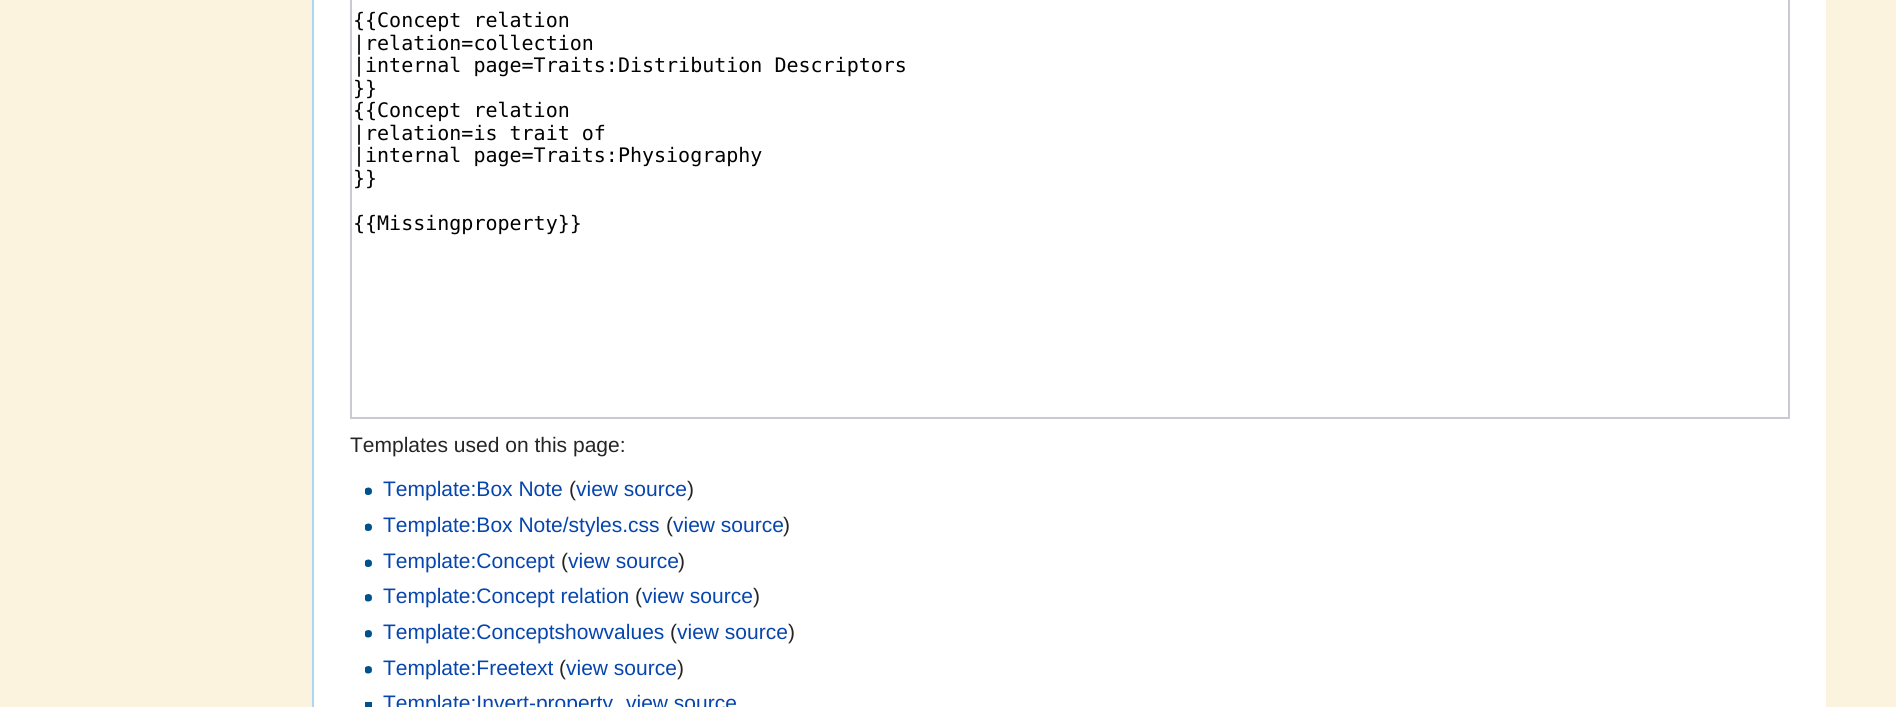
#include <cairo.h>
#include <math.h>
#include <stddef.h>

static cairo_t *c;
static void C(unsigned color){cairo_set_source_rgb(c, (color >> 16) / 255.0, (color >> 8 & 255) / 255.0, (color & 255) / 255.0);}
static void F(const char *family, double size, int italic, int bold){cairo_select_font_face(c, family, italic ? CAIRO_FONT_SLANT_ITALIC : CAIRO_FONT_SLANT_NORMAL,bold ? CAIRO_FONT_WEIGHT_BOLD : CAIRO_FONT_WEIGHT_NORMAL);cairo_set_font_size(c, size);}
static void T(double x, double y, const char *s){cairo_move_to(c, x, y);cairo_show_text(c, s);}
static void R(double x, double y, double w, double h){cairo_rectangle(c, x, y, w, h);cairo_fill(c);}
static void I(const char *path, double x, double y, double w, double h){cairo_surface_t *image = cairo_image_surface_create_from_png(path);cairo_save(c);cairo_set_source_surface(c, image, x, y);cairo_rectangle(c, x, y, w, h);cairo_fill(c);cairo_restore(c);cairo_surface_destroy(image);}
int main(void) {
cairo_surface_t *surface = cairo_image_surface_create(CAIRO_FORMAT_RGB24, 1896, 707);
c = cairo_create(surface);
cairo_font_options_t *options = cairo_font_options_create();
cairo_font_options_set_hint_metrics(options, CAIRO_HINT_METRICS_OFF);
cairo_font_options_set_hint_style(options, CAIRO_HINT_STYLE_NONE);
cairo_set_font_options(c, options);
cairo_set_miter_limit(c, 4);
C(0xfcf3df);
cairo_paint(c);
C(0xffffff);
R(314,0,1512,707);
C(0xa7d7f9);
R(312,0,2,707);
cairo_rectangle(c,351,-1,1438,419);
C(0xc8ccd1);
cairo_stroke(c);
F("DejaVu Sans Mono",20,0,0);
C(0x000000);
T(353,27,"{{Concept relation");
T(353,50,"|relation=collection");
T(353,72,"|internal page=Traits:Distribution Descriptors");
T(353,95,"}}");
T(353,117,"{{Concept relation");
T(353,140,"|relation=is trait of");
T(353,162,"|internal page=Traits:Physiography");
T(353,185,"}}");
T(353,230,"{{Missingproperty}}");
F("Liberation Sans",21,0,0);
C(0x252525);
T(350,452,"Templates used on this page:");
I("1.png",365,487,7,8);
C(0x0645ad);
T(383,496,"Template:Box Note");
C(0x252525);
T(569,496,"(");
C(0x0645ad);
T(576,496,"view source");
C(0x252525);
T(687,496,")");
I("2.png",365,523,7,8);
C(0x0645ad);
T(383,532,"Template:Box Note/styles.css");
C(0x252525);
T(666,532,"(");
C(0x0645ad);
T(673,532,"view source");
C(0x252525);
T(783,532,")");
I("1.png",365,559,7,8);
C(0x0645ad);
T(383,568,"Template:Concept");
C(0x252525);
T(561,568,"(");
C(0x0645ad);
T(568,568,"view source");
C(0x252525);
T(678,568,")");
I("3.png",365,594,7,8);
C(0x0645ad);
T(383,603,"Template:Concept relation");
C(0x252525);
T(635,603,"(");
C(0x0645ad);
T(642,603,"view source");
C(0x252525);
T(753,603,")");
I("3.png",365,630,7,8);
C(0x0645ad);
T(383,639,"Template:Conceptshowvalues");
C(0x252525);
T(670,639,"(");
C(0x0645ad);
T(677,639,"view source");
C(0x252525);
T(788,639,")");
I("3.png",365,666,7,8);
C(0x0645ad);
T(383,675,"Template:Freetext");
C(0x252525);
T(559,675,"(");
C(0x0645ad);
T(566,675,"view source");
C(0x252525);
T(677,675,")");
C(0x00528c);
R(365,702,7,5);
C(0x0645ad);
T(383,710,"Template:Invert-property");
T(626,710,"view source");
cairo_surface_write_to_png(surface, "o.png");
cairo_font_options_destroy(options);
cairo_destroy(c);
cairo_surface_destroy(surface);
return 0;
}
